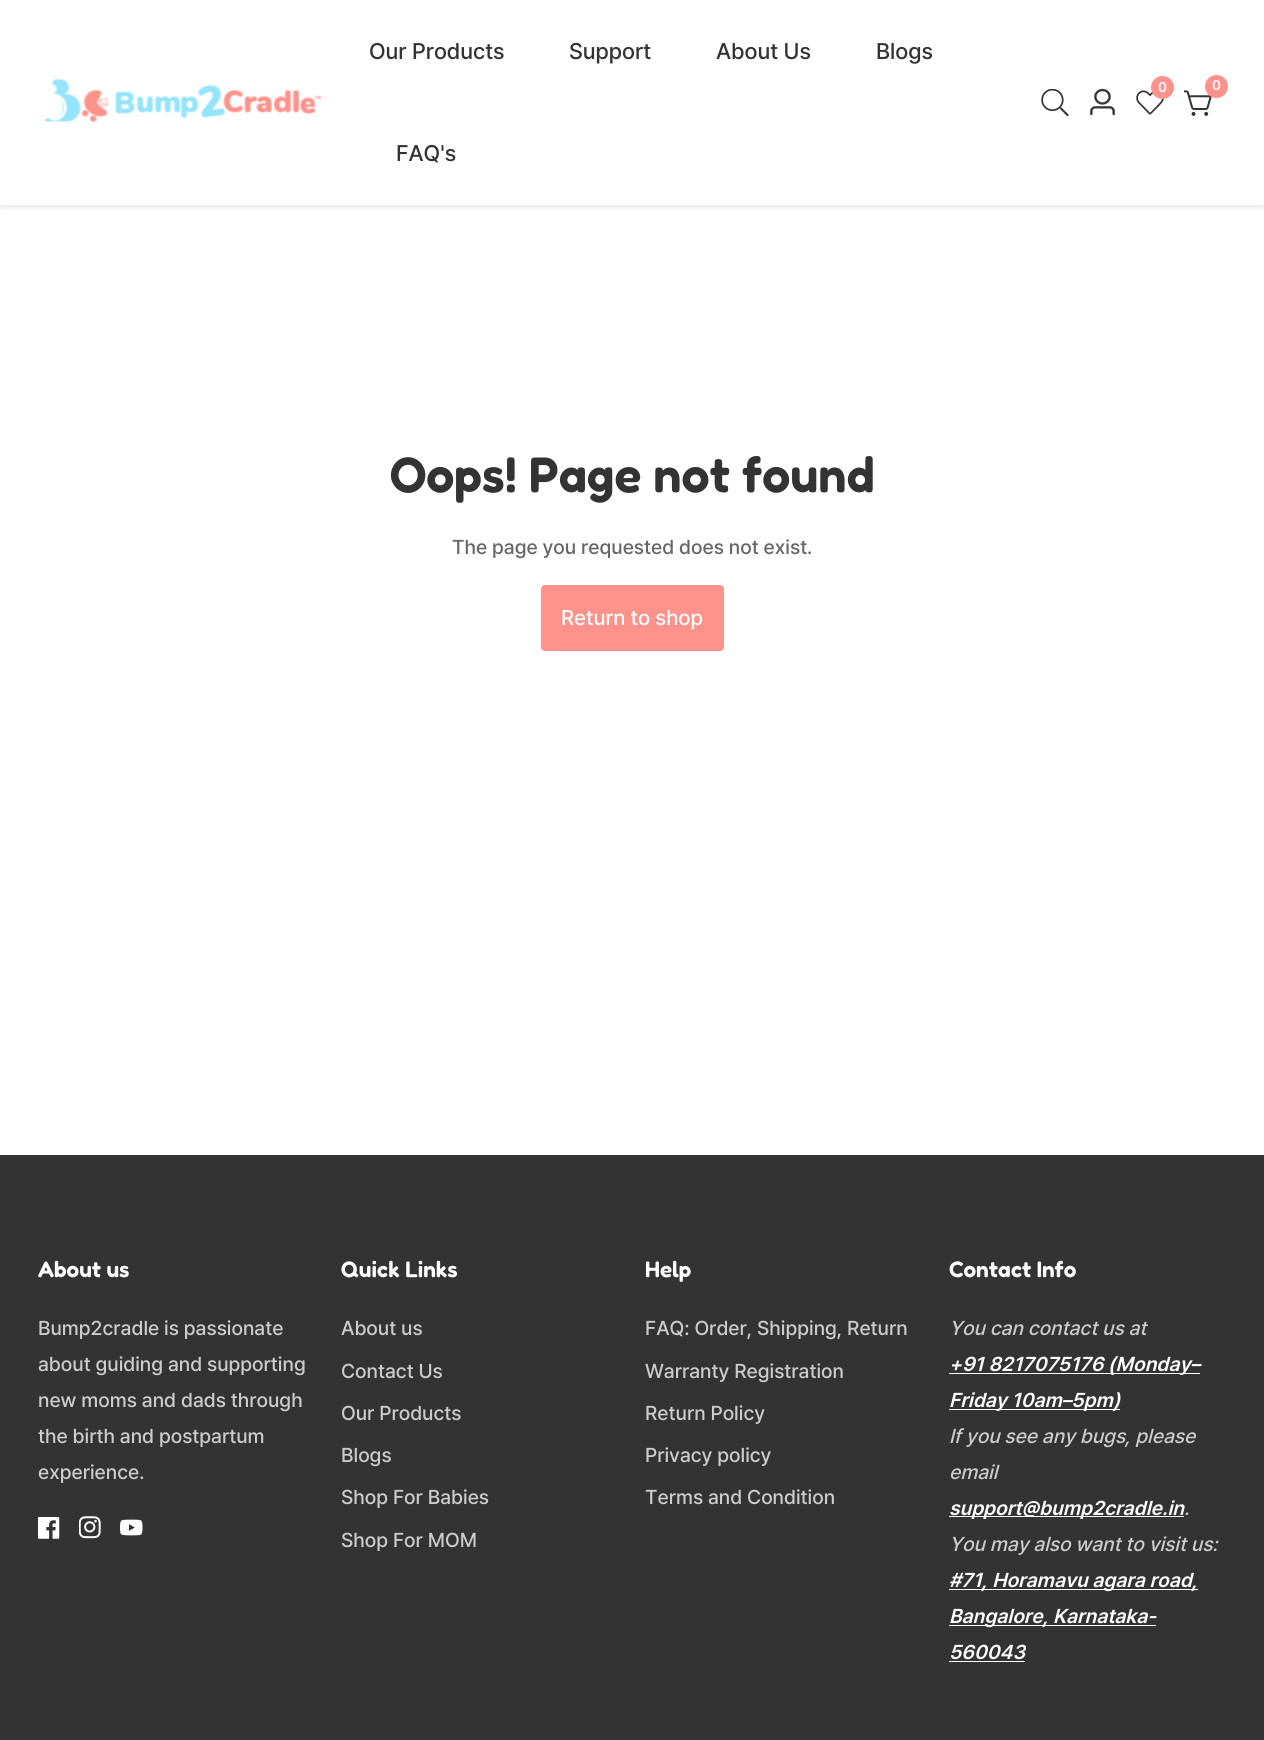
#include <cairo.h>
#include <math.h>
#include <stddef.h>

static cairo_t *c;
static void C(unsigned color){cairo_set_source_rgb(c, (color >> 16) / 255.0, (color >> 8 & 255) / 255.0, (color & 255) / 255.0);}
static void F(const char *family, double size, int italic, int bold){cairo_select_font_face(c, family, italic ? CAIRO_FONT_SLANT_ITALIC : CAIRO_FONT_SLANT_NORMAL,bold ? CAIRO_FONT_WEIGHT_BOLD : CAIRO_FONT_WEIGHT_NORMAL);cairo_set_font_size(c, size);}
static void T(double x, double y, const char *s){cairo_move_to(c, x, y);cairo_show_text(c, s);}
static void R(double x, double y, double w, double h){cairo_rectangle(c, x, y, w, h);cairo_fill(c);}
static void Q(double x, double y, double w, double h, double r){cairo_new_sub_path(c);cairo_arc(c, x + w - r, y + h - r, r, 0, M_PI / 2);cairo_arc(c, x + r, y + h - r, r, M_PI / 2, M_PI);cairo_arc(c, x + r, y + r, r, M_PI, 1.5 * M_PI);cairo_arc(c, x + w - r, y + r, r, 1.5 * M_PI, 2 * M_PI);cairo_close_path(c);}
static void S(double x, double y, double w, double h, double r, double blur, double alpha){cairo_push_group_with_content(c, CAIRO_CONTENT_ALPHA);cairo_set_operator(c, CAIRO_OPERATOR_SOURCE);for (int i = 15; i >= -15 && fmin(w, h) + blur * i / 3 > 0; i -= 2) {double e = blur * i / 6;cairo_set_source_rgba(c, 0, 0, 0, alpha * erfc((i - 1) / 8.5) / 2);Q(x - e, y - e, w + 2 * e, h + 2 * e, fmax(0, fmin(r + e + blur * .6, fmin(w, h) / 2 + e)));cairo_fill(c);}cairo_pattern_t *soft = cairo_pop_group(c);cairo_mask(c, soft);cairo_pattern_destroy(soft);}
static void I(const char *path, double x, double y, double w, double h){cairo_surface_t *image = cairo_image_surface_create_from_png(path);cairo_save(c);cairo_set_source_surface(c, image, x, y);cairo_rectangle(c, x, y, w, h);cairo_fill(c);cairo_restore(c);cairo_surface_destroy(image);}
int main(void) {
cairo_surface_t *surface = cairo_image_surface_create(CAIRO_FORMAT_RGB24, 1264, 1740);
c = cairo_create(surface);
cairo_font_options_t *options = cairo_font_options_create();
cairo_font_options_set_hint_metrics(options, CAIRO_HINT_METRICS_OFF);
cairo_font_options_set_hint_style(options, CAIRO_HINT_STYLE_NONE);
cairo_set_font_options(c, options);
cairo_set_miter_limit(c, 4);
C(0xffffff);
cairo_paint(c);
cairo_save(c);
cairo_rectangle(c,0,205,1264,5);
cairo_clip(c);
C(0x000000);
S(0,0,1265,205,0,4.5,.15);
cairo_restore(c);
I("1.png",44,78,278,45);
F("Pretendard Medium",22.5,0,0);
C(0x333333);
T(369,59,"Our Products");
T(569,59,"Support");
T(716,59,"About Us");
T(876,59,"Blogs");
T(396,161,"FAQ's");
I("2.png",1041,89,28,27);
I("3.png",1090,88,25,28);
I("4.png",1136,90,28,25);
C(0xff928b);
cairo_arc(c,1162.5,87.5,11.5,0,2 * M_PI);
cairo_fill(c);
F("Pretendard SemiBold",14,0,0);
C(0xffffff);
T(1158,92,"0");
I("5.png",1184,90,28,26);
C(0xff928b);
cairo_arc(c,1216.5,86.5,11.5,0,2 * M_PI);
cairo_fill(c);
C(0xffffff);
T(1212,90,"0");
F("Fredoka SemiBold",50,0,0);
C(0x333333);
T(390,492,"Oops! Page not found");
F("Pretendard Medium",20,0,0);
C(0x666666);
T(452,554,"The page you requested does not exist.");
C(0xff928b);
Q(541,585,183,66,4);
cairo_fill(c);
F("Pretendard Medium",21.25,0,0);
C(0xffffff);
T(561,625,"Return to shop");
C(0x333333);
R(0,1155,1264,585);
F("Fredoka SemiBold",22.5,0,0);
C(0xffffff);
T(38,1277,"About us");
F("Pretendard Medium",20,0,0);
C(0xcccccc);
T(38,1335,"Bump2cradle is passionate");
T(38,1371,"about guiding and supporting");
T(38,1407,"new moms and dads through");
T(38,1443,"the birth and postpartum");
T(38,1479,"experience.");
I("6.png",38,1517,22,22);
I("7.png",79,1516,22,23);
I("8.png",120,1519,23,17);
F("Fredoka SemiBold",22.5,0,0);
C(0xffffff);
T(341,1277,"Quick Links");
F("Pretendard Medium",20,0,0);
C(0xcccccc);
T(341,1335,"About us");
T(341,1378,"Contact Us");
T(341,1420,"Our Products");
T(341,1462,"Blogs");
T(341,1504,"Shop For Babies");
T(341,1547,"Shop For MOM");
F("Fredoka SemiBold",22.5,0,0);
C(0xffffff);
T(645,1277,"Help");
F("Pretendard Medium",20,0,0);
C(0xcccccc);
T(645,1335,"FAQ: Order, Shipping, Return");
T(645,1378,"Warranty Registration");
T(645,1420,"Return Policy");
T(645,1462,"Privacy policy");
T(645,1504,"Terms and Condition");
F("Fredoka SemiBold",22.5,0,0);
C(0xffffff);
T(949,1277,"Contact Info");
F("Pretendard Medium",20,1,0);
C(0xcccccc);
T(949,1335,"You can contact us at");
C(0xffffff);
R(949,1373,251,1);
F("Pretendard SemiBold",20,1,0);
T(949,1371,"+91 8217075176 (Monday–");
R(949,1409,171,1);
T(949,1407,"Friday 10am–5pm)");
F("Pretendard Medium",20,1,0);
C(0xcccccc);
T(949,1443,"If you see any bugs, please");
T(949,1479,"email");
C(0xffffff);
R(949,1516,235,1);
F("Pretendard SemiBold",20,1,0);
T(949,1515,"support@bump2cradle.in");
F("Pretendard Medium",20,1,0);
C(0xcccccc);
T(1184,1515,".");
T(949,1551,"You may also want to visit us:");
C(0xffffff);
R(949,1589,249,1);
F("Pretendard SemiBold",20,1,0);
T(949,1587,"#71, Horamavu agara road,");
R(949,1625,207,1);
T(949,1623,"Bangalore, Karnataka-");
T(949,1659,"560043");
R(949,1661,76,1);
cairo_surface_write_to_png(surface, "o.png");
cairo_font_options_destroy(options);
cairo_destroy(c);
cairo_surface_destroy(surface);
return 0;
}
